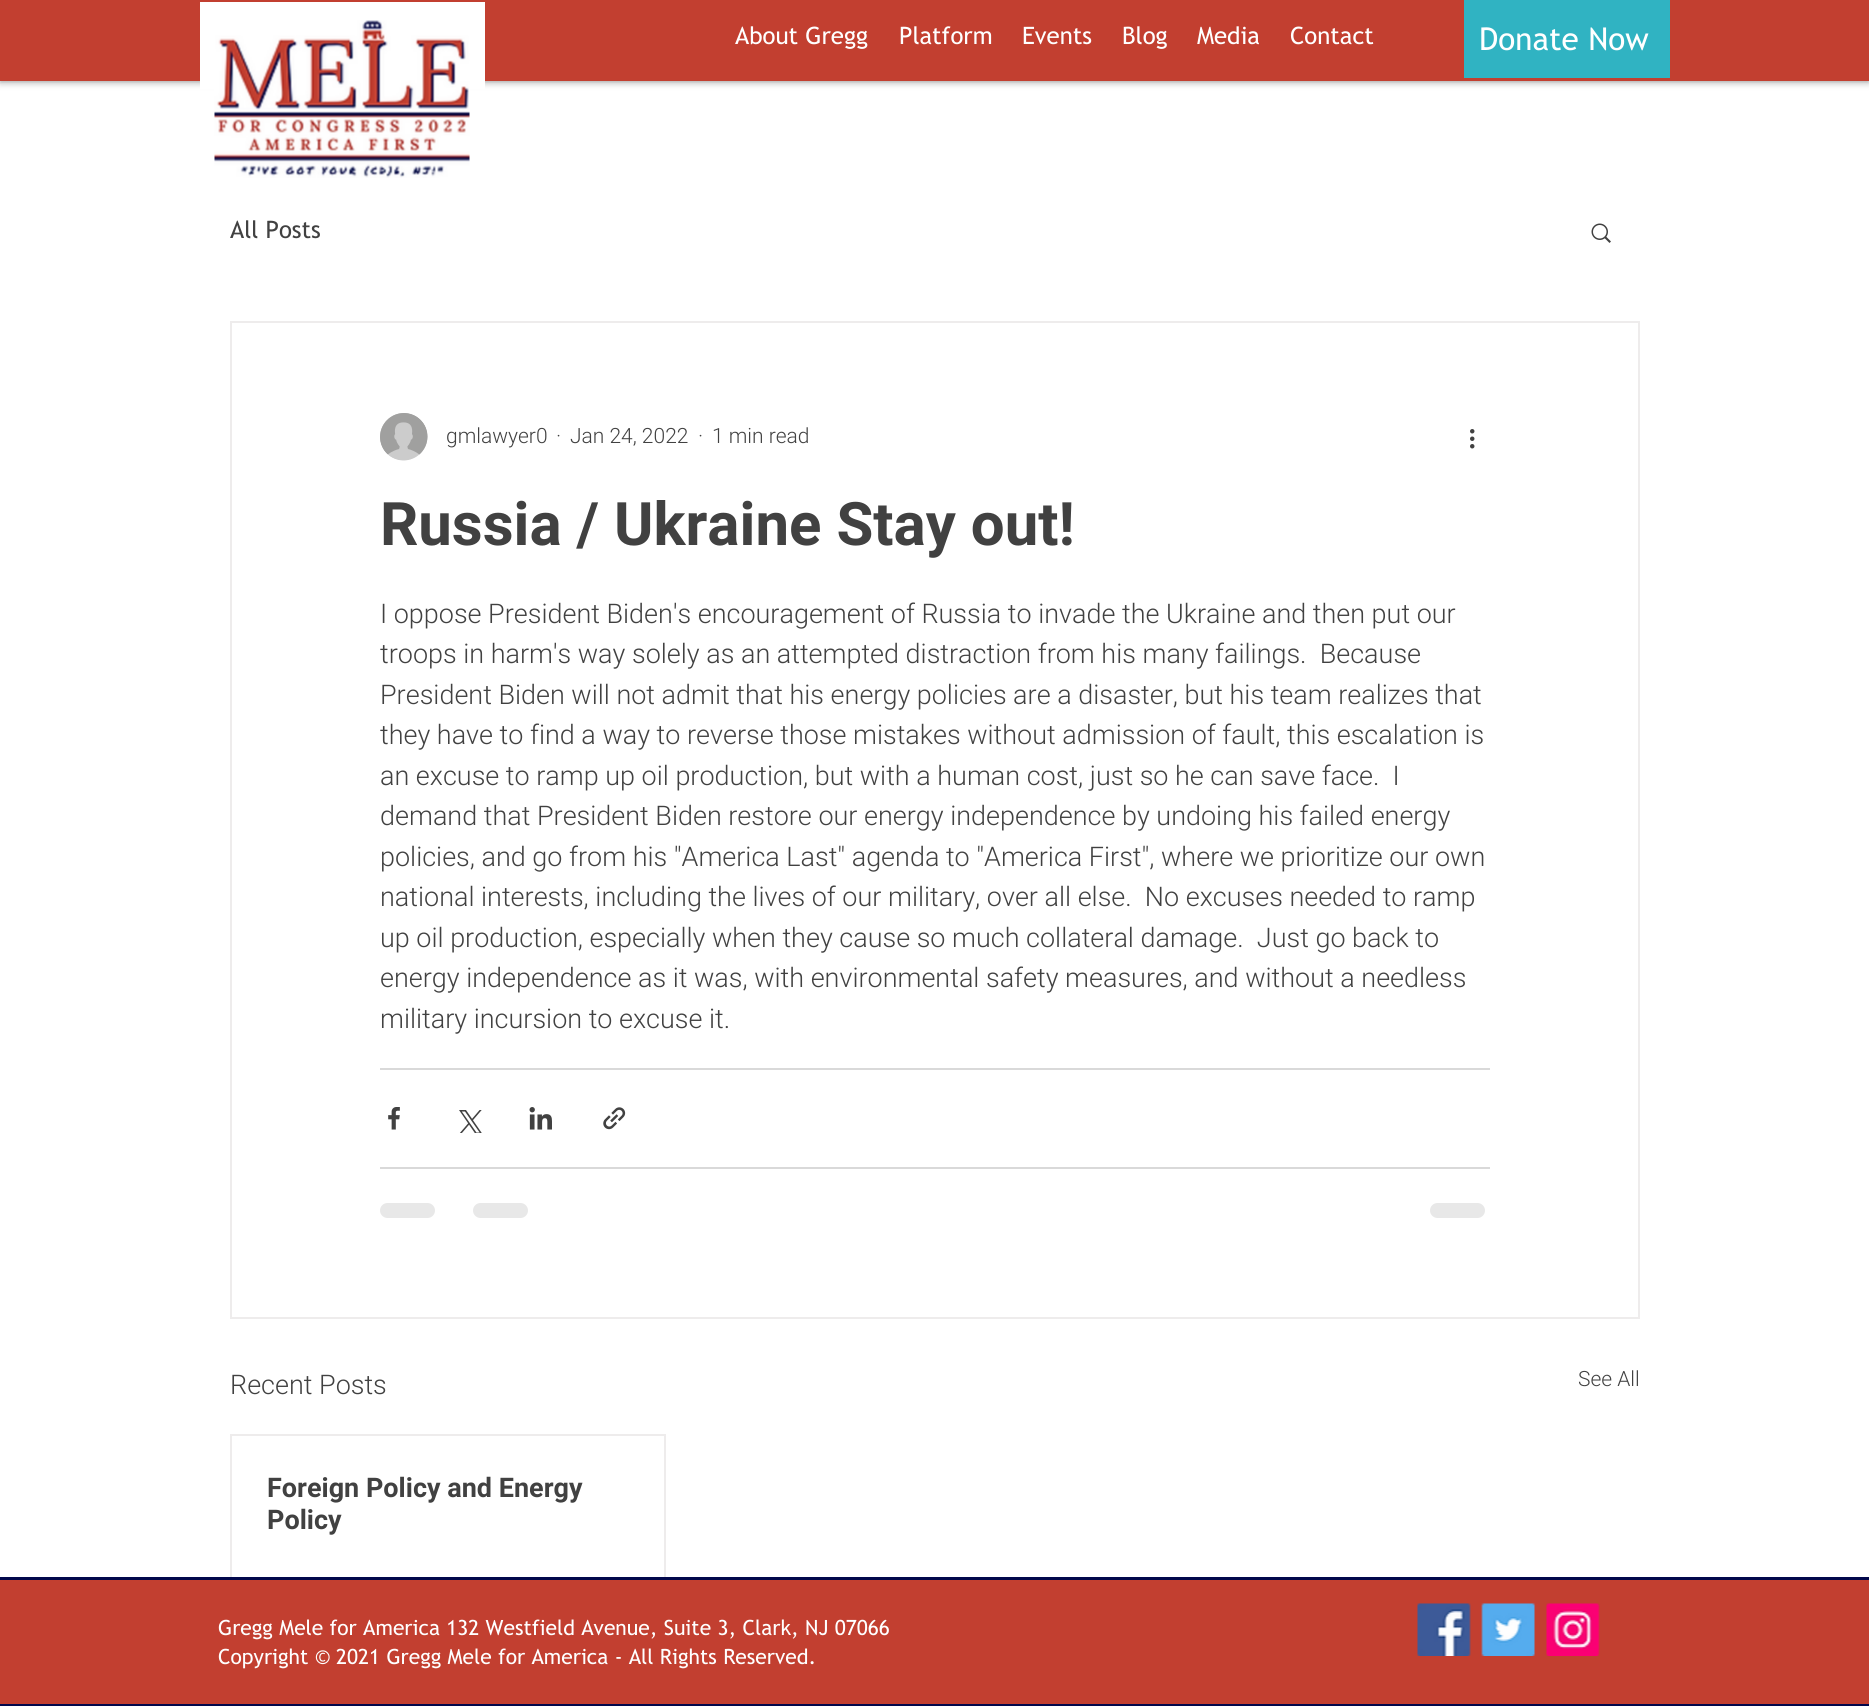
#include <cairo.h>
#include <math.h>
#include <stddef.h>

static cairo_t *c;
static void C(unsigned color){cairo_set_source_rgb(c, (color >> 16) / 255.0, (color >> 8 & 255) / 255.0, (color & 255) / 255.0);}
static void F(const char *family, double size, int italic, int bold){cairo_select_font_face(c, family, italic ? CAIRO_FONT_SLANT_ITALIC : CAIRO_FONT_SLANT_NORMAL,bold ? CAIRO_FONT_WEIGHT_BOLD : CAIRO_FONT_WEIGHT_NORMAL);cairo_set_font_size(c, size);}
static void T(double x, double y, const char *s){cairo_move_to(c, x, y);cairo_show_text(c, s);}
static void R(double x, double y, double w, double h){cairo_rectangle(c, x, y, w, h);cairo_fill(c);}
static void Q(double x, double y, double w, double h, double r){cairo_new_sub_path(c);cairo_arc(c, x + w - r, y + h - r, r, 0, M_PI / 2);cairo_arc(c, x + r, y + h - r, r, M_PI / 2, M_PI);cairo_arc(c, x + r, y + r, r, M_PI, 1.5 * M_PI);cairo_arc(c, x + w - r, y + r, r, 1.5 * M_PI, 2 * M_PI);cairo_close_path(c);}
static void S(double x, double y, double w, double h, double r, double blur, double alpha){cairo_push_group_with_content(c, CAIRO_CONTENT_ALPHA);cairo_set_operator(c, CAIRO_OPERATOR_SOURCE);for (int i = 15; i >= -15 && fmin(w, h) + blur * i / 3 > 0; i -= 2) {double e = blur * i / 6;cairo_set_source_rgba(c, 0, 0, 0, alpha * erfc((i - 1) / 8.5) / 2);Q(x - e, y - e, w + 2 * e, h + 2 * e, fmax(0, fmin(r + e + blur * .6, fmin(w, h) / 2 + e)));cairo_fill(c);}cairo_pattern_t *soft = cairo_pop_group(c);cairo_mask(c, soft);cairo_pattern_destroy(soft);}
static void I(const char *path, double x, double y, double w, double h){cairo_surface_t *image = cairo_image_surface_create_from_png(path);cairo_save(c);cairo_set_source_surface(c, image, x, y);cairo_rectangle(c, x, y, w, h);cairo_fill(c);cairo_restore(c);cairo_surface_destroy(image);}
int main(void) {
cairo_surface_t *surface = cairo_image_surface_create(CAIRO_FORMAT_RGB24, 1869, 1706);
c = cairo_create(surface);
cairo_font_options_t *options = cairo_font_options_create();
cairo_font_options_set_hint_metrics(options, CAIRO_HINT_METRICS_OFF);
cairo_font_options_set_hint_style(options, CAIRO_HINT_STYLE_NONE);
cairo_set_font_options(c, options);
cairo_set_miter_limit(c, 4);
C(0xffffff);
cairo_paint(c);
C(0x000000);
S(0,0,1869,81,0,4,.5);
C(0xc23f30);
R(0,0,1869,81);
F("Trebuchet MS",24,0,0);
C(0xffffff);
T(735,44,"About Gregg");
T(899,44,"Platform");
T(1022,44,"Events");
T(1122,44,"Blog");
T(1197,44,"Media");
T(1290,44,"Contact");
R(200,2,285,87);
C(0x30b3c2);
R(1464,0,206,78);
F("Trebuchet MS",31.5,0,0);
C(0xffffff);
T(1479,50,"Donate Now");
I("1.png",214,20,256,158);
F("Trebuchet MS",24,0,0);
C(0x414141);
T(230,238,"All Posts");
I("2.png",1591,223,20,20);
cairo_rectangle(c,231,322,1408,996);
C(0xeeecec);
cairo_stroke(c);
I("3.png",380,413,48,48);
F("Roboto Light",21,0,0);
C(0x414141);
T(446,443,"gmlawyer0");
T(556,443,"·");
T(570,443,"Jan 24, 2022");
T(698,443,"·");
T(712,443,"1 min read");
I("4.png",1470,429,5,20);
F("Roboto",60,0,1);
T(380,545,"Russia / Ukraine Stay out!");
F("Roboto Light",27,0,0);
T(380,623,"I oppose President Biden's encouragement of Russia to invade the Ukraine and then put our");
T(380,663,"troops in harm's way solely as an attempted distraction from his many failings.  Because");
T(380,704,"President Biden will not admit that his energy policies are a disaster, but his team realizes that");
T(380,744,"they have to find a way to reverse those mistakes without admission of fault, this escalation is");
T(380,785,"an excuse to ramp up oil production, but with a human cost, just so he can save face.  I");
T(380,825,"demand that President Biden restore our energy independence by undoing his failed energy");
T(380,866,"policies, and go from his \"America Last\" agenda to \"America First\", where we prioritize our own");
T(380,906,"national interests, including the lives of our military, over all else.  No excuses needed to ramp");
T(380,947,"up oil production, especially when they cause so much collateral damage.  Just go back to");
T(380,987,"energy independence as it was, with environmental safety measures, and without a needless");
T(380,1028,"military incursion to excuse it.");
C(0xd9d9d9);
R(380,1068,1110,2);
I("5.png",388,1107,12,23);
I("6.png",459,1110,23,23);
I("7.png",529,1107,23,23);
I("8.png",603,1107,23,23);
R(380,1167,1110,2);
C(0xe8e8e8);
Q(380,1203,55,15,7.5);
cairo_fill(c);
Q(473,1203,55,15,7.5);
cairo_fill(c);
Q(1430,1203,55,15,7.5);
cairo_fill(c);
C(0x414141);
T(230,1394,"Recent Posts");
F("Roboto Light",21,0,0);
T(1578,1386,"See All");
cairo_rectangle(c,231,1435,434,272);
C(0xeeecec);
cairo_stroke(c);
F("Roboto",27,0,1);
C(0x414141);
T(267,1497,"Foreign Policy and Energy");
T(267,1529,"Policy");
C(0xc23f30);
R(0,1580,1869,124);
C(0x02084b);
R(0,1577,1869,3);
R(0,1704,1869,2);
F("Trebuchet MS",21,0,0);
C(0xffffff);
T(218,1635,"Gregg Mele for America 132 Westfield Avenue, Suite 3, Clark, NJ 07066");
T(218,1664,"Copyright © 2021 Gregg Mele for America - All Rights Reserved.");
I("9.png",1417,1603,54,53);
I("10.png",1481,1603,54,53);
I("11.png",1546,1603,54,53);
cairo_surface_write_to_png(surface, "o.png");
cairo_font_options_destroy(options);
cairo_destroy(c);
cairo_surface_destroy(surface);
return 0;
}
